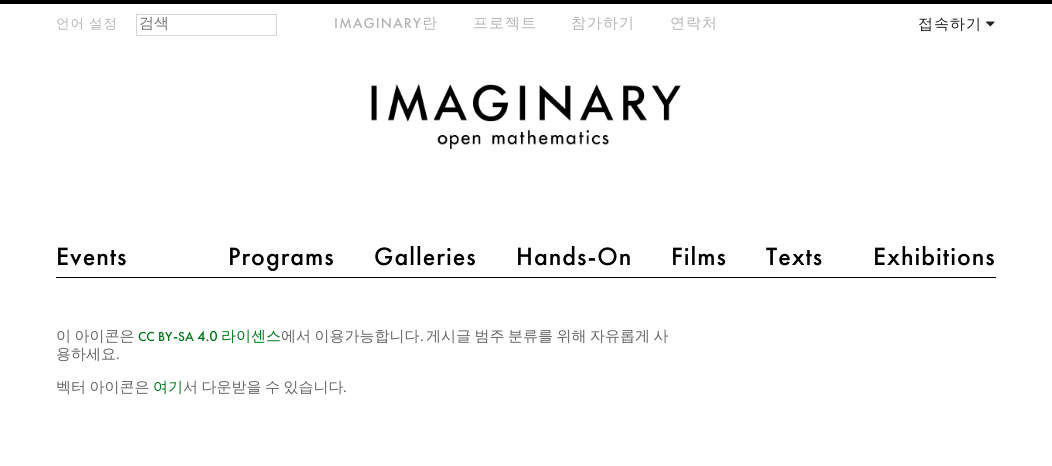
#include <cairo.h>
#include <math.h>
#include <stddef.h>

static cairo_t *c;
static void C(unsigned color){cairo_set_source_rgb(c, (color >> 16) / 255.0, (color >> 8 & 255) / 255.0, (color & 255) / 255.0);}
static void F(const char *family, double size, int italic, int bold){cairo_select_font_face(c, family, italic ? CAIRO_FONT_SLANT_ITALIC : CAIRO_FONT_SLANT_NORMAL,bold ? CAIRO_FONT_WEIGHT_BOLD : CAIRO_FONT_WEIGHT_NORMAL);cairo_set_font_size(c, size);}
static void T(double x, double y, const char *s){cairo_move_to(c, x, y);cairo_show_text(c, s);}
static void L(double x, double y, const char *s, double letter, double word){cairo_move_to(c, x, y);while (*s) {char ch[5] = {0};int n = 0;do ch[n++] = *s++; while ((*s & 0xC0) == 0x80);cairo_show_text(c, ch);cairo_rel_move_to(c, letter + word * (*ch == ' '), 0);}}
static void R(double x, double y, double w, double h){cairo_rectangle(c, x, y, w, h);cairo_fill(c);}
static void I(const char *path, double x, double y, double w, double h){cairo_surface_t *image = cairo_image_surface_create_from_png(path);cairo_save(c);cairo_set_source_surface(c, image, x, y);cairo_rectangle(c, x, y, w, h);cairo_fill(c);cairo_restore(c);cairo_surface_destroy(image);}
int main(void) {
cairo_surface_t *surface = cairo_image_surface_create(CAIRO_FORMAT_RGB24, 1052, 466);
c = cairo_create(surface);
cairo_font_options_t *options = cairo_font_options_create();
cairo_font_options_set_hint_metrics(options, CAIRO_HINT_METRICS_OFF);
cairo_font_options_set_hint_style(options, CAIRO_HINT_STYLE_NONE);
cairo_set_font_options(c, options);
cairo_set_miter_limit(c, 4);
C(0xffffff);
cairo_paint(c);
C(0x000000);
R(0,0,1052,4);
F("WenQuanYi Zen Hei Medium",13.5,0,0);
C(0xb4b4b4);
L(56,28,"언어 설정",1,-1);
cairo_rectangle(c,136.5,14.5,140,21);
C(0xd3d7d9);
cairo_set_line_width(c,1);
cairo_stroke(c);
F("WenQuanYi Zen Hei Medium",15,0,0);
C(0x757575);
T(139,28,"검색");
F("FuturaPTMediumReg",15,0,0);
C(0xb4b4b4);
L(334,28,"IMAGINARY",1,0);
F("WenQuanYi Zen Hei Medium",15,0,0);
L(422,28,"란",1,0);
L(473,28,"프로젝트",1,0);
L(571,28,"참가하기",1,0);
L(670,28,"연락처",1,0);
C(0x222222);
L(918,29,"접속하기",1,0);
I("1.png",986,21,9,6);
C(0x000000);
R(56,277,940,1);
F("FuturaPTMediumReg",26,0,0);
L(56,265,"Events",1,0);
L(228,265,"Programs",1,0);
L(374,265,"Galleries",1,0);
L(516,265,"Hands-On",1,0);
L(671,265,"Films",1,0);
L(766,265,"Texts",1,0);
L(873,265,"Exhibitions",1,0);
I("2.png",371,84,310,65);
F("WenQuanYi Zen Hei Medium",15,0,0);
C(0x666666);
L(56,341,"이 아이콘은",0,-1);
F("FuturaPTMediumReg",13.5,0,0);
C(0x007818);
T(138,341,"CC");
T(158,341,"BY");
F("FuturaPTMediumReg",15,0,0);
T(173,341,"-");
F("FuturaPTMediumReg",13.5,0,0);
T(178,341,"SA");
F("FuturaPTMediumReg",15,0,0);
T(197,341,"4.0");
F("WenQuanYi Zen Hei Medium",15,0,0);
T(221,341,"라이센스");
C(0x666666);
L(281,341,"에서 이용가능합니다",0,-1);
L(426,341,"게시글 범주 분류를 위해 자유롭게 사",0,-1);
F("FuturaPTMediumReg",15,0,0);
T(420,341,".");
F("WenQuanYi Zen Hei Medium",15,0,0);
T(56,359,"용하세요");
F("FuturaPTMediumReg",15,0,0);
T(116,359,".");
F("WenQuanYi Zen Hei Medium",15,0,0);
L(56,392,"벡터 아이콘은",0,-1);
C(0x007818);
T(153,392,"여기");
C(0x666666);
L(183,392,"서 다운받을 수 있습니다",0,-1);
F("FuturaPTMediumReg",15,0,0);
T(343,392,".");
cairo_surface_write_to_png(surface, "o.png");
cairo_font_options_destroy(options);
cairo_destroy(c);
cairo_surface_destroy(surface);
return 0;
}
